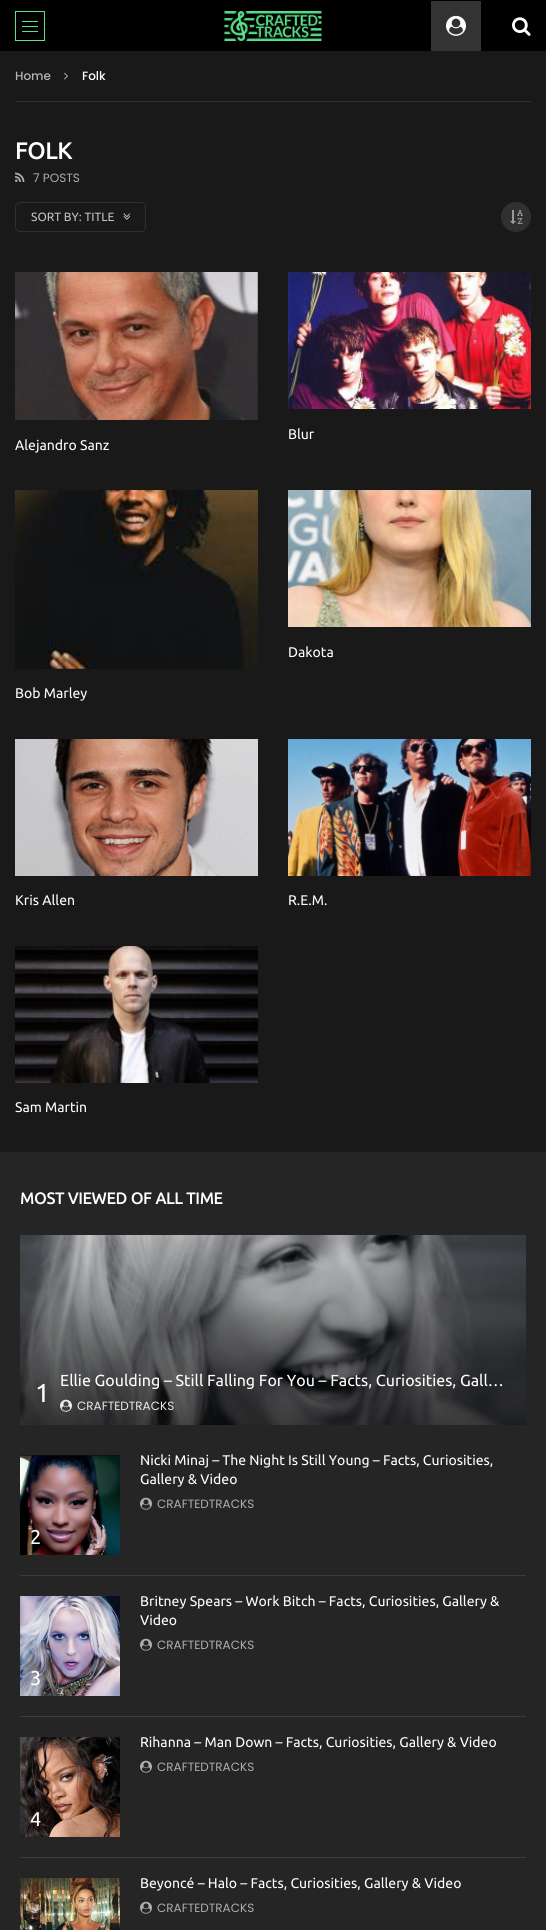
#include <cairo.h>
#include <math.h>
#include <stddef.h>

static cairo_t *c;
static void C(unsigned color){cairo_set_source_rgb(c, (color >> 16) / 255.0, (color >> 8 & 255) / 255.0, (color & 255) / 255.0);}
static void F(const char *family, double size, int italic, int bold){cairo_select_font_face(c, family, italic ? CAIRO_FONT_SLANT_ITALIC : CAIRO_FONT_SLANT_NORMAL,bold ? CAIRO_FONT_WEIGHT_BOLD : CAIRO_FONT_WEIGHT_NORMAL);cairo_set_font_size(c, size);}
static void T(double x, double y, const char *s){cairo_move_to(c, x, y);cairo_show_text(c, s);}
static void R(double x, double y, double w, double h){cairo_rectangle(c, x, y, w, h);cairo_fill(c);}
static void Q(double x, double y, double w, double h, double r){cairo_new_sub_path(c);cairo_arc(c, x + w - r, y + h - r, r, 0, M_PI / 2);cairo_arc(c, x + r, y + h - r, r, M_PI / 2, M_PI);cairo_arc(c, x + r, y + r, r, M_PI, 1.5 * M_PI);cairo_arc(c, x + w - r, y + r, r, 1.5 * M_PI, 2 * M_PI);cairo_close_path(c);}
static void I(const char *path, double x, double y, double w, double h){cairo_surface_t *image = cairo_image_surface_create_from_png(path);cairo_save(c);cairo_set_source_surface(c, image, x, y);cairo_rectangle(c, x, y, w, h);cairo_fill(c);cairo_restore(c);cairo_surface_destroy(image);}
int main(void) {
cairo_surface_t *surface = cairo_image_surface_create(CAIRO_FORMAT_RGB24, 546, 1930);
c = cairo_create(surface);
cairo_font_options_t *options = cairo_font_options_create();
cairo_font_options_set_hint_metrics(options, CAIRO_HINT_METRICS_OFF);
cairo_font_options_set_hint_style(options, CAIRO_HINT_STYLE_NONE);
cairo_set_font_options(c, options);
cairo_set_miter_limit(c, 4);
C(0x191919);
cairo_paint(c);
C(0x000000);
R(0,0,546,51);
cairo_rectangle(c,15.5,11.5,29,29);
C(0x58e389);
cairo_set_line_width(c,1);
cairo_stroke(c);
R(22,21,16,1);
R(22,26,16,1);
R(22,31,16,1);
I("1.png",224,11,98,30);
C(0x333333);
R(431,1,50,50);
I("2.png",446,15,20,21);
I("3.png",512,17,19,19);
C(0x303030);
R(15,101,516,1);
F("Poppins Medium",12,0,0);
C(0xb5b5b5);
T(15,80,"Home");
I("4.png",64,72,4,8);
C(0xffffff);
T(82,80,"Folk");
F("Ubuntu",23,0,1);
T(15,159,"FOLK");
I("5.png",15,172,10,10);
F("Poppins",12,0,0);
C(0xaeaeae);
T(33,182,"7 POSTS");
Q(15.5,202.5,130,29,4.5);
C(0x303030);
cairo_stroke(c);
F("Ubuntu",12,0,0);
C(0xc4c4c4);
T(31,221,"SORT BY: TITLE");
I("6.png",123,213,7,7);
C(0x303030);
cairo_arc(c,516,217,15,0,2 * M_PI);
cairo_fill(c);
I("7.png",510,210,13,14);
I("8.png",288,272,243,137);
F("Ubuntu",14,0,0);
C(0xffffff);
T(288,439,"Blur");
I("9.png",15,272,243,148);
T(15,450,"Alejandro Sanz");
I("10.png",288,490,243,137);
T(288,657,"Dakota");
I("11.png",15,490,243,179);
T(15,698,"Bob Marley");
I("12.png",15,739,243,137);
T(15,905,"Kris Allen");
I("13.png",288,739,243,137);
T(288,905,"R.E.M.");
I("14.png",15,946,243,137);
T(15,1112,"Sam Martin");
C(0x252525);
R(0,1152,546,778);
F("Ubuntu",16,0,1);
C(0xffffff);
T(20,1204,"MOST VIEWED OF ALL TIME");
I("15.png",20,1235,506,190);
F("Ubuntu",16,0,0);
T(60,1386,"Ellie Goulding – Still Falling For You – Facts, Curiosities, Gall…");
F("Ubuntu",26,0,0);
T(35,1402,"1");
I("16.png",60,1399,12,13);
F("Poppins",12,0,0);
C(0xebebeb);
T(77,1410,"CRAFTEDTRACKS");
C(0x3b3b3b);
R(20,1575,506,1);
F("Ubuntu",14,0,0);
C(0xffffff);
T(140,1465,"Nicki Minaj – The Night Is Still Young – Facts, Curiosities,");
T(140,1484,"Gallery & Video");
I("17.png",140,1497,12,13);
F("Poppins",12,0,0);
C(0xaeaeae);
T(157,1508,"CRAFTEDTRACKS");
I("18.png",20,1455,100,100);
F("Ubuntu",20,0,0);
C(0xffffff);
T(30,1544,"2");
C(0x3b3b3b);
R(20,1716,506,1);
F("Ubuntu",14,0,0);
C(0xffffff);
T(140,1606,"Britney Spears – Work Bitch – Facts, Curiosities, Gallery &");
T(140,1625,"Video");
I("17.png",140,1638,12,13);
F("Poppins",12,0,0);
C(0xaeaeae);
T(157,1649,"CRAFTEDTRACKS");
I("19.png",20,1596,100,100);
F("Ubuntu",20,0,0);
C(0xffffff);
T(30,1685,"3");
C(0x3b3b3b);
R(20,1857,506,1);
F("Ubuntu",14,0,0);
C(0xffffff);
T(140,1747,"Rihanna – Man Down – Facts, Curiosities, Gallery & Video");
I("17.png",140,1760,12,13);
F("Poppins",12,0,0);
C(0xaeaeae);
T(157,1771,"CRAFTEDTRACKS");
I("20.png",20,1737,100,100);
F("Ubuntu",20,0,0);
C(0xffffff);
T(30,1826,"4");
I("21.png",20,1878,100,52);
F("Ubuntu",14,0,0);
T(140,1888,"Beyoncé – Halo – Facts, Curiosities, Gallery & Video");
I("17.png",140,1901,12,13);
F("Poppins",12,0,0);
C(0xaeaeae);
T(157,1912,"CRAFTEDTRACKS");
cairo_surface_write_to_png(surface, "o.png");
cairo_font_options_destroy(options);
cairo_destroy(c);
cairo_surface_destroy(surface);
return 0;
}
